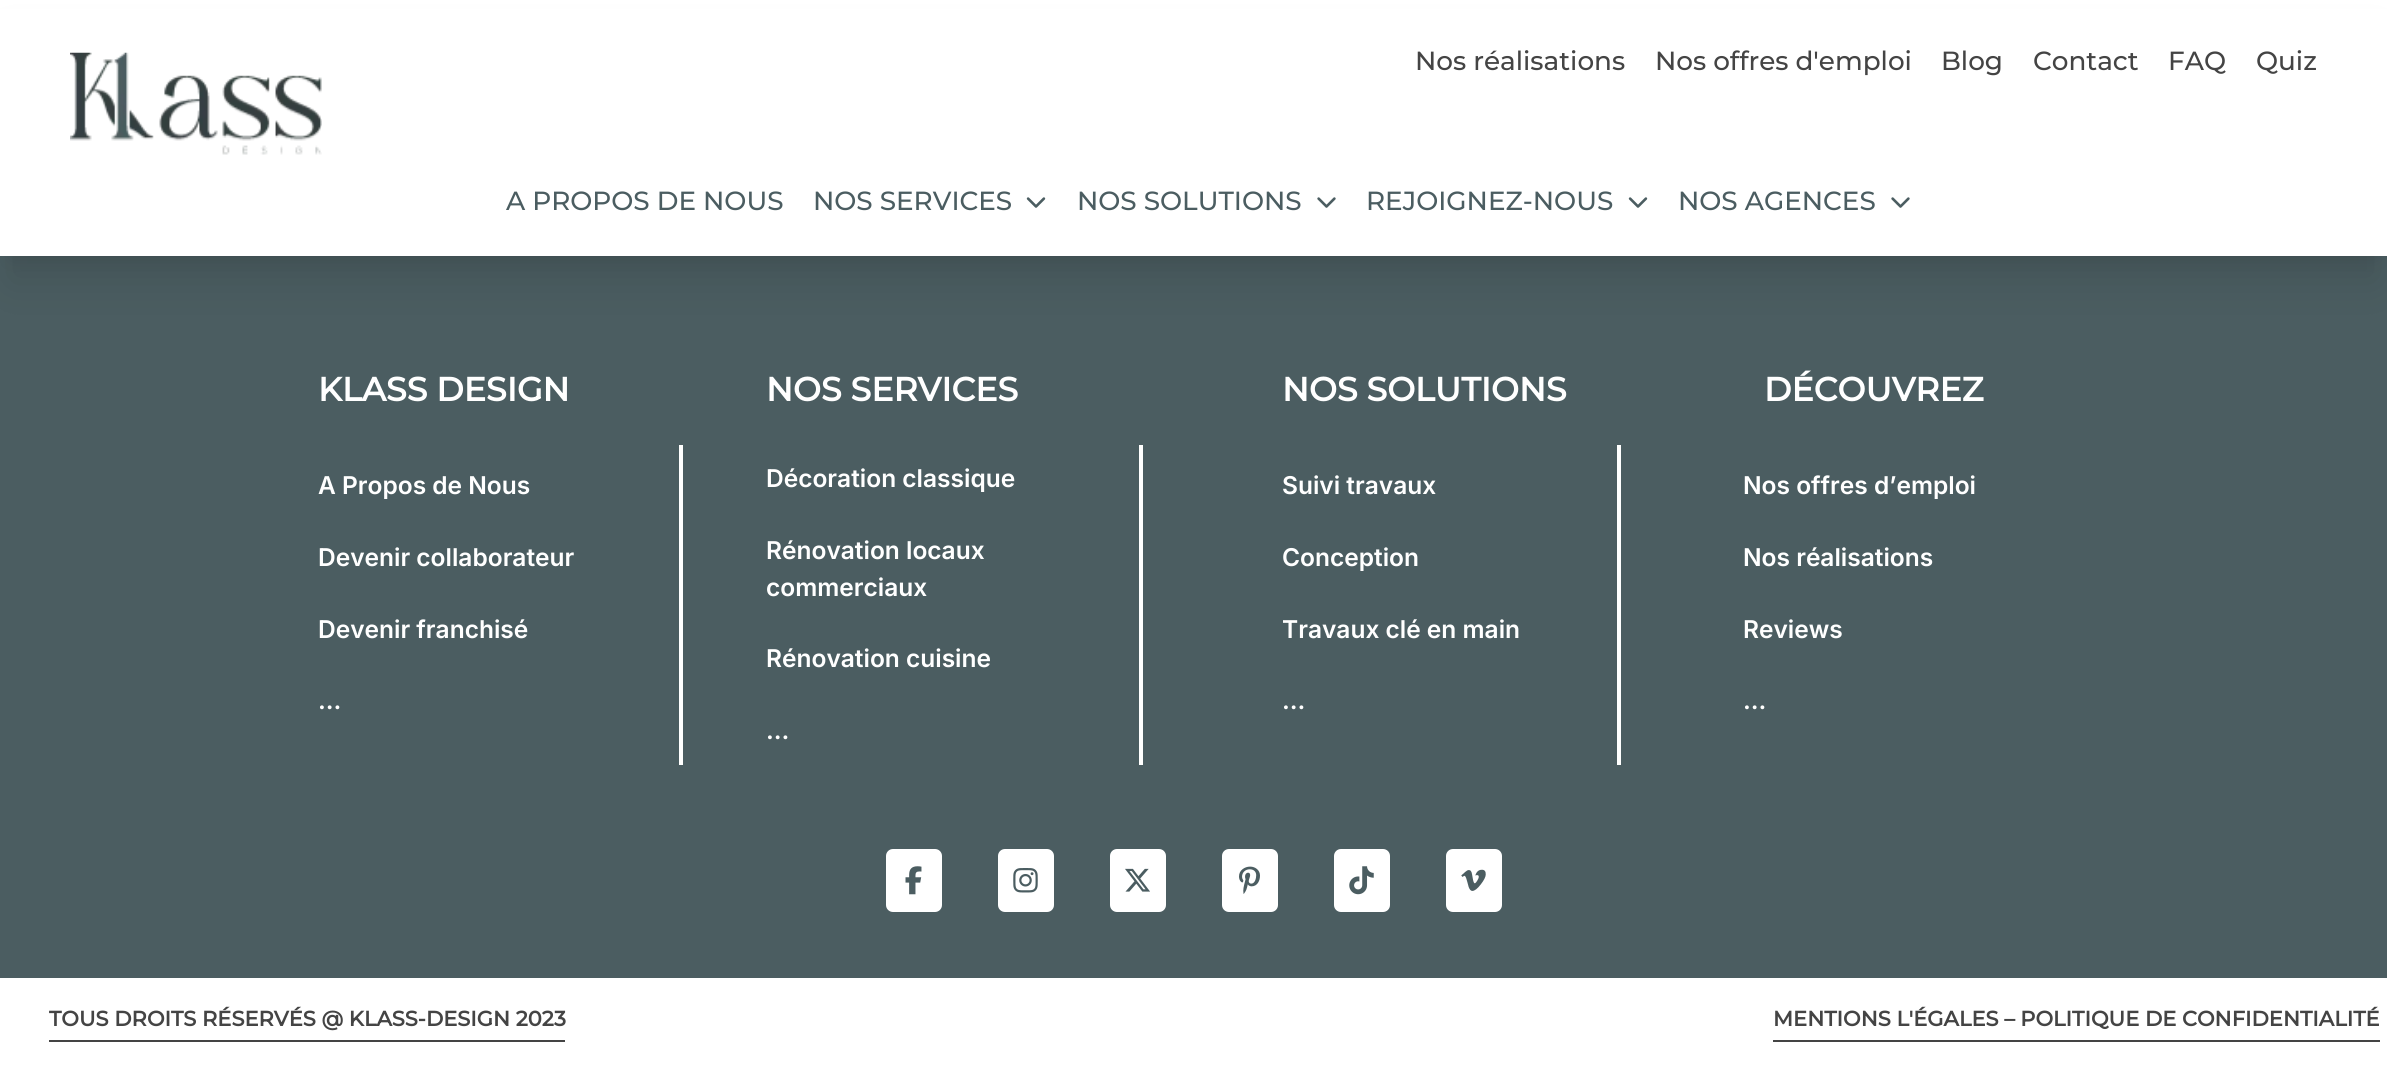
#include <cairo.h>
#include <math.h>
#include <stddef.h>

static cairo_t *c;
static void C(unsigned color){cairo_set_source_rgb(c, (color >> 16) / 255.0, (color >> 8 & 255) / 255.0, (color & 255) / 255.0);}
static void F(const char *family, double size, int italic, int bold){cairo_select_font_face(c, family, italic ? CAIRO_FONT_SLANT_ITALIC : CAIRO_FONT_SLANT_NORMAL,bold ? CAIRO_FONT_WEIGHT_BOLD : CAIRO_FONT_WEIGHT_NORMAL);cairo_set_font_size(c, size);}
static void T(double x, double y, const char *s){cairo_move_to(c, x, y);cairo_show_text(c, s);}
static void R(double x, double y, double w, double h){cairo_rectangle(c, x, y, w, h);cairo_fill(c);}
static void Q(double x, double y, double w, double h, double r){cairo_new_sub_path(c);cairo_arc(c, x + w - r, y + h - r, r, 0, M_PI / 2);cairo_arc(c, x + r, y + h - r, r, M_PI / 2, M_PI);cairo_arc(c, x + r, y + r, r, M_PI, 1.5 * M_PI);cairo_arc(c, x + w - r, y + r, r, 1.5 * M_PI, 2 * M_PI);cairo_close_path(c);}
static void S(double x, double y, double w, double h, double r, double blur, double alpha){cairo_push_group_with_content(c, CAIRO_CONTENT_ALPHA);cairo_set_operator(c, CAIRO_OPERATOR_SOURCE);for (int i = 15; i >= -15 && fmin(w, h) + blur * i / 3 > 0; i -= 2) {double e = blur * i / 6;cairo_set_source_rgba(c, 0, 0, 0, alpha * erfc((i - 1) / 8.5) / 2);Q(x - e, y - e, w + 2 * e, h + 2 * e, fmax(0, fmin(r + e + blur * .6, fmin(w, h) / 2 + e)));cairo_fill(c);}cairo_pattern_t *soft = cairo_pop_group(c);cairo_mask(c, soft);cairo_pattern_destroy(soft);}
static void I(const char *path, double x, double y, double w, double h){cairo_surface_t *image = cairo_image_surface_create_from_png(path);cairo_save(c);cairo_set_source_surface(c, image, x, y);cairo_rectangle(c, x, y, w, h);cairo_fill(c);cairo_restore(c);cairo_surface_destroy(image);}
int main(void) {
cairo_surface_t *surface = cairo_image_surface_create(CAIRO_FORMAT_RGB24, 2387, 1083);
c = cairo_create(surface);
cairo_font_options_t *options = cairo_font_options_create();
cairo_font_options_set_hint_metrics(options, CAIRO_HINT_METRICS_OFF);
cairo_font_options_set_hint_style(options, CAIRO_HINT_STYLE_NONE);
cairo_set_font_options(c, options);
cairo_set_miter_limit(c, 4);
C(0xffffff);
cairo_paint(c);
C(0x4b5d61);
R(0,256,2387,722);
C(0x000000);
S(11,25,2366,234,0,9,.1);
S(9,44,2369,238,0,22,.1);
C(0xffffff);
R(0,9,2387,247);
I("1.png",70,52,252,103);
F("Montserrat Medium",26.25,0,0);
C(0x444444);
T(1415,70,"Nos réalisations");
T(1655,70,"Nos offres d'emploi");
T(1941,70,"Blog");
T(2033,70,"Contact");
T(2168,70,"FAQ");
T(2256,70,"Quiz");
C(0x4b5d61);
T(506,210,"A PROPOS DE NOUS");
T(813,210,"NOS SERVICES");
I("2.png",1026,197,20,11);
T(1077,210,"NOS SOLUTIONS");
I("3.png",1317,197,19,11);
T(1366,210,"REJOIGNEZ-NOUS");
I("2.png",1628,197,20,11);
T(1678,210,"NOS AGENCES");
I("3.png",1891,197,19,11);
F("Montserrat",33.25,0,1);
C(0xffffff);
T(318,401,"KLASS DESIGN");
F("Inter SemiBold",24.5,0,0);
T(318,494,"A Propos de Nous");
T(318,566,"Devenir collaborateur");
T(318,638,"Devenir franchisé");
T(318,709,"...");
R(679,445,4,320);
F("Montserrat",33.25,0,1);
T(766,401,"NOS SERVICES");
F("Inter SemiBold",24.5,0,0);
T(766,487,"Décoration classique");
T(766,559,"Rénovation locaux");
T(766,596,"commerciaux");
T(766,667,"Rénovation cuisine");
T(766,739,"...");
R(1139,445,4,320);
F("Montserrat",33.25,0,1);
T(1282,401,"NOS SOLUTIONS");
F("Inter SemiBold",24.5,0,0);
T(1282,494,"Suivi travaux");
T(1282,566,"Conception");
T(1282,638,"Travaux clé en main");
T(1282,709,"...");
R(1617,445,4,320);
F("Montserrat",33.25,0,1);
T(1764,401,"DÉCOUVREZ");
F("Inter SemiBold",24.5,0,0);
T(1743,494,"Nos offres d’emploi");
T(1743,566,"Nos réalisations");
T(1743,638,"Reviews");
T(1743,709,"...");
Q(886,849,56,63,7);
cairo_fill(c);
I("4.png",905,866,17,29);
Q(998,849,56,63,7);
cairo_fill(c);
I("5.png",1013,868,25,25);
Q(1110,849,56,63,7);
cairo_fill(c);
I("6.png",1125,868,25,24);
Q(1222,849,56,63,7);
cairo_fill(c);
I("7.png",1239,866,21,28);
Q(1334,849,56,63,7);
cairo_fill(c);
I("8.png",1349,866,25,29);
Q(1446,849,56,63,7);
cairo_fill(c);
I("9.png",1461,869,25,22);
F("Montserrat",21,0,1);
C(0x444444);
T(49,1026,"TOUS DROITS RÉSERVÉS @ KLASS-DESIGN 2023");
R(49,1040,516,2);
T(1773,1026,"MENTIONS L'ÉGALES – POLITIQUE DE CONFIDENTIALITÉ");
R(1773,1040,607,2);
cairo_surface_write_to_png(surface, "o.png");
cairo_font_options_destroy(options);
cairo_destroy(c);
cairo_surface_destroy(surface);
return 0;
}
